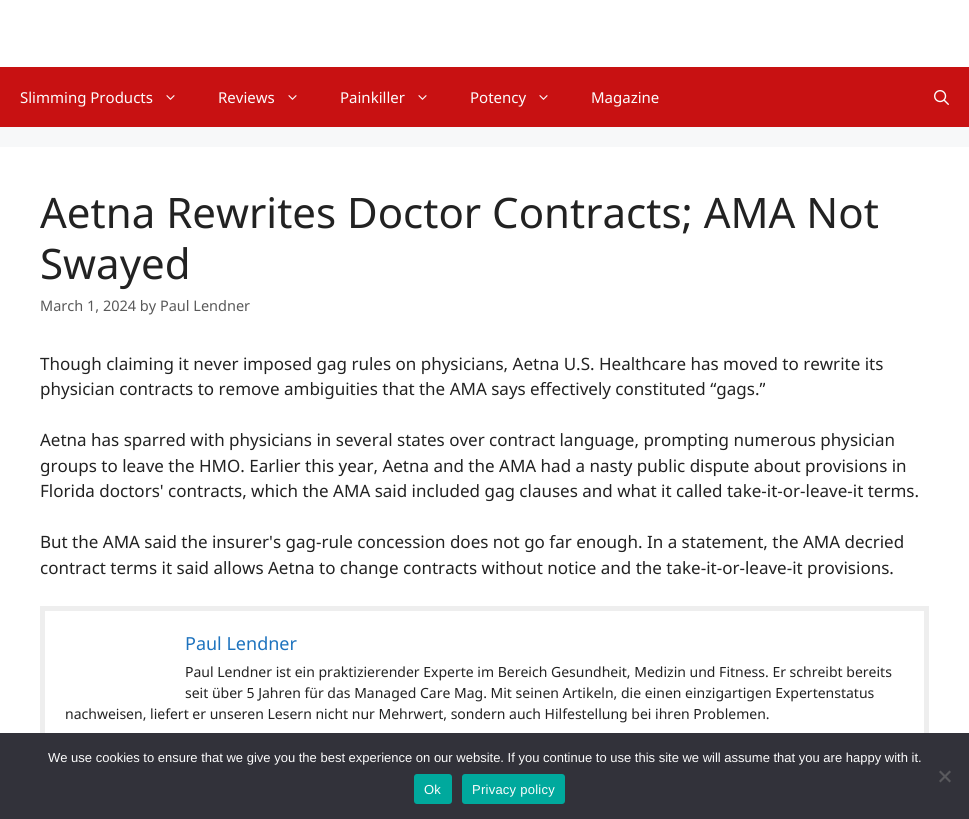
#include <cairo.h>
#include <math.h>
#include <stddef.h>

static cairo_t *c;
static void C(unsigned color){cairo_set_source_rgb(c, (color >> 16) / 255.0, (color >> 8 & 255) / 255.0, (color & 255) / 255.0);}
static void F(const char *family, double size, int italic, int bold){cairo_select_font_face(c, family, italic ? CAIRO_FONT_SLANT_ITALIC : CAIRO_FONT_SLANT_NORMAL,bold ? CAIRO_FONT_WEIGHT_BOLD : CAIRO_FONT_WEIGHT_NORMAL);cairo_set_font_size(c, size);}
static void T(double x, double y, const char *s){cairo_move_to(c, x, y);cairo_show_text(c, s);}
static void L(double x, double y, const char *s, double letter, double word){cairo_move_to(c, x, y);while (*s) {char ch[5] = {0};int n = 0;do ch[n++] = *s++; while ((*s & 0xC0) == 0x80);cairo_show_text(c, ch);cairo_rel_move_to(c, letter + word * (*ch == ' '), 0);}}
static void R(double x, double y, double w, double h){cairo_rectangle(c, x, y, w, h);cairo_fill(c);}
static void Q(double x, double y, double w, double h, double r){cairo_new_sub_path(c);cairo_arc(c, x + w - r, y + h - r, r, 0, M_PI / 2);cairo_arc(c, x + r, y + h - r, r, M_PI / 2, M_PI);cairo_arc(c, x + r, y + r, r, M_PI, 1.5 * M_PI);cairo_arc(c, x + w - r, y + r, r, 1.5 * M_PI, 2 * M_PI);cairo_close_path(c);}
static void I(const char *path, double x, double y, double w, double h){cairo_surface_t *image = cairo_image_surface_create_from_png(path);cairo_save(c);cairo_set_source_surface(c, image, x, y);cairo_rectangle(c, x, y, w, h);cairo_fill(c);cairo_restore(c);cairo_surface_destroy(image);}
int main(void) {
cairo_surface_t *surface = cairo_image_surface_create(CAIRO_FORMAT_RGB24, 969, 819);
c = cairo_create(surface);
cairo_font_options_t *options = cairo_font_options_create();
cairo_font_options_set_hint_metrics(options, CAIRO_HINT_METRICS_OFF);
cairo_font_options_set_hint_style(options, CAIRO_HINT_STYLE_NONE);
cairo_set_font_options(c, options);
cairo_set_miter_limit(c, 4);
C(0xf7f8f9);
cairo_paint(c);
C(0xffffff);
R(0,0,969,67);
C(0xc81112);
R(0,67,969,60);
F("Noto Sans",15,0,0);
C(0xfcfcfc);
T(20,103,"Slimming Products");
I("1.png",166,95,9,5);
T(218,103,"Reviews");
I("1.png",288,95,9,5);
T(340,103,"Painkiller");
I("1.png",418,95,9,5);
T(470,103,"Potency");
I("1.png",539,95,9,5);
T(591,103,"Magazine");
I("2.png",934,90,15,15);
C(0xffffff);
R(0,147,969,586);
F("Noto Sans",42,0,0);
C(0x222222);
T(40,228,"Aetna Rewrites Doctor Contracts; AMA Not");
T(40,279,"Swayed");
F("Noto Sans",14.5,0,0);
C(0x595959);
T(40,311,"March 1, 2024 by Paul Lendner");
F("Noto Sans",17,0,0);
C(0x222222);
T(40,370,"Though claiming it never imposed gag rules on physicians, Aetna U.S. Healthcare has moved to rewrite its");
T(40,395,"physician contracts to remove ambiguities that the AMA says effectively constituted “gags.”");
T(40,446,"Aetna has sparred with physicians in several states over contract language, prompting numerous physician");
T(40,472,"groups to leave the HMO. Earlier this year, Aetna and the AMA had a nasty public dispute about provisions in");
T(40,497,"Florida doctors' contracts, which the AMA said included gag clauses and what it called take-it-or-leave-it terms.");
T(40,548,"But the AMA said the insurer's gag-rule concession does not go far enough. In a statement, the AMA decried");
T(40,574,"contract terms it said allows Aetna to change contracts without notice and the take-it-or-leave-it provisions.");
cairo_rectangle(c,42.5,608.5,884,130);
C(0xeeeeee);
cairo_set_line_width(c,5);
cairo_stroke(c);
F("Noto Sans",18,0,0);
C(0x1e73be);
T(185,650,"Paul Lendner");
F("Noto Sans",14,0,0);
C(0x222222);
T(185,677,"Paul Lendner ist ein praktizierender Experte im Bereich Gesundheit, Medizin und Fitness. Er schreibt bereits");
T(185,698,"seit über 5 Jahren für das Managed Care Mag. Mit seinen Artikeln, die einen einzigartigen Expertenstatus");
T(65,719,"nachweisen, liefert er unseren Lesern nicht nur Mehrwert, sondern auch Hilfestellung bei ihren Problemen.");
C(0x32323a);
R(0,733,969,86);
F("Liberation Sans",13,0,0);
C(0xfcfcfc);
T(48,762,"We use cookies to ensure that we give you the best experience on our website. If you continue to use this site we will assume that you are happy with it.");
C(0x59595d);
cairo_new_path(c);
cairo_move_to(c,949.5,770.5);
cairo_line_to(c,951,772);
cairo_line_to(c,940.5,782.5);
cairo_line_to(c,939,781);
cairo_close_path(c);
cairo_fill(c);
cairo_new_path(c);
cairo_move_to(c,939,772);
cairo_line_to(c,940.5,770.5);
cairo_line_to(c,951,781);
cairo_line_to(c,949.5,782.5);
cairo_close_path(c);
cairo_fill(c);
C(0x00a99d);
Q(414,774,38,30,3);
cairo_fill(c);
C(0xfcfcfc);
L(424,794,"Ok",.25,0);
C(0x00a99d);
Q(462,774,103,30,3);
cairo_fill(c);
C(0xfcfcfc);
L(472,794,"Privacy policy",.25,0);
cairo_surface_write_to_png(surface, "o.png");
cairo_font_options_destroy(options);
cairo_destroy(c);
cairo_surface_destroy(surface);
return 0;
}
